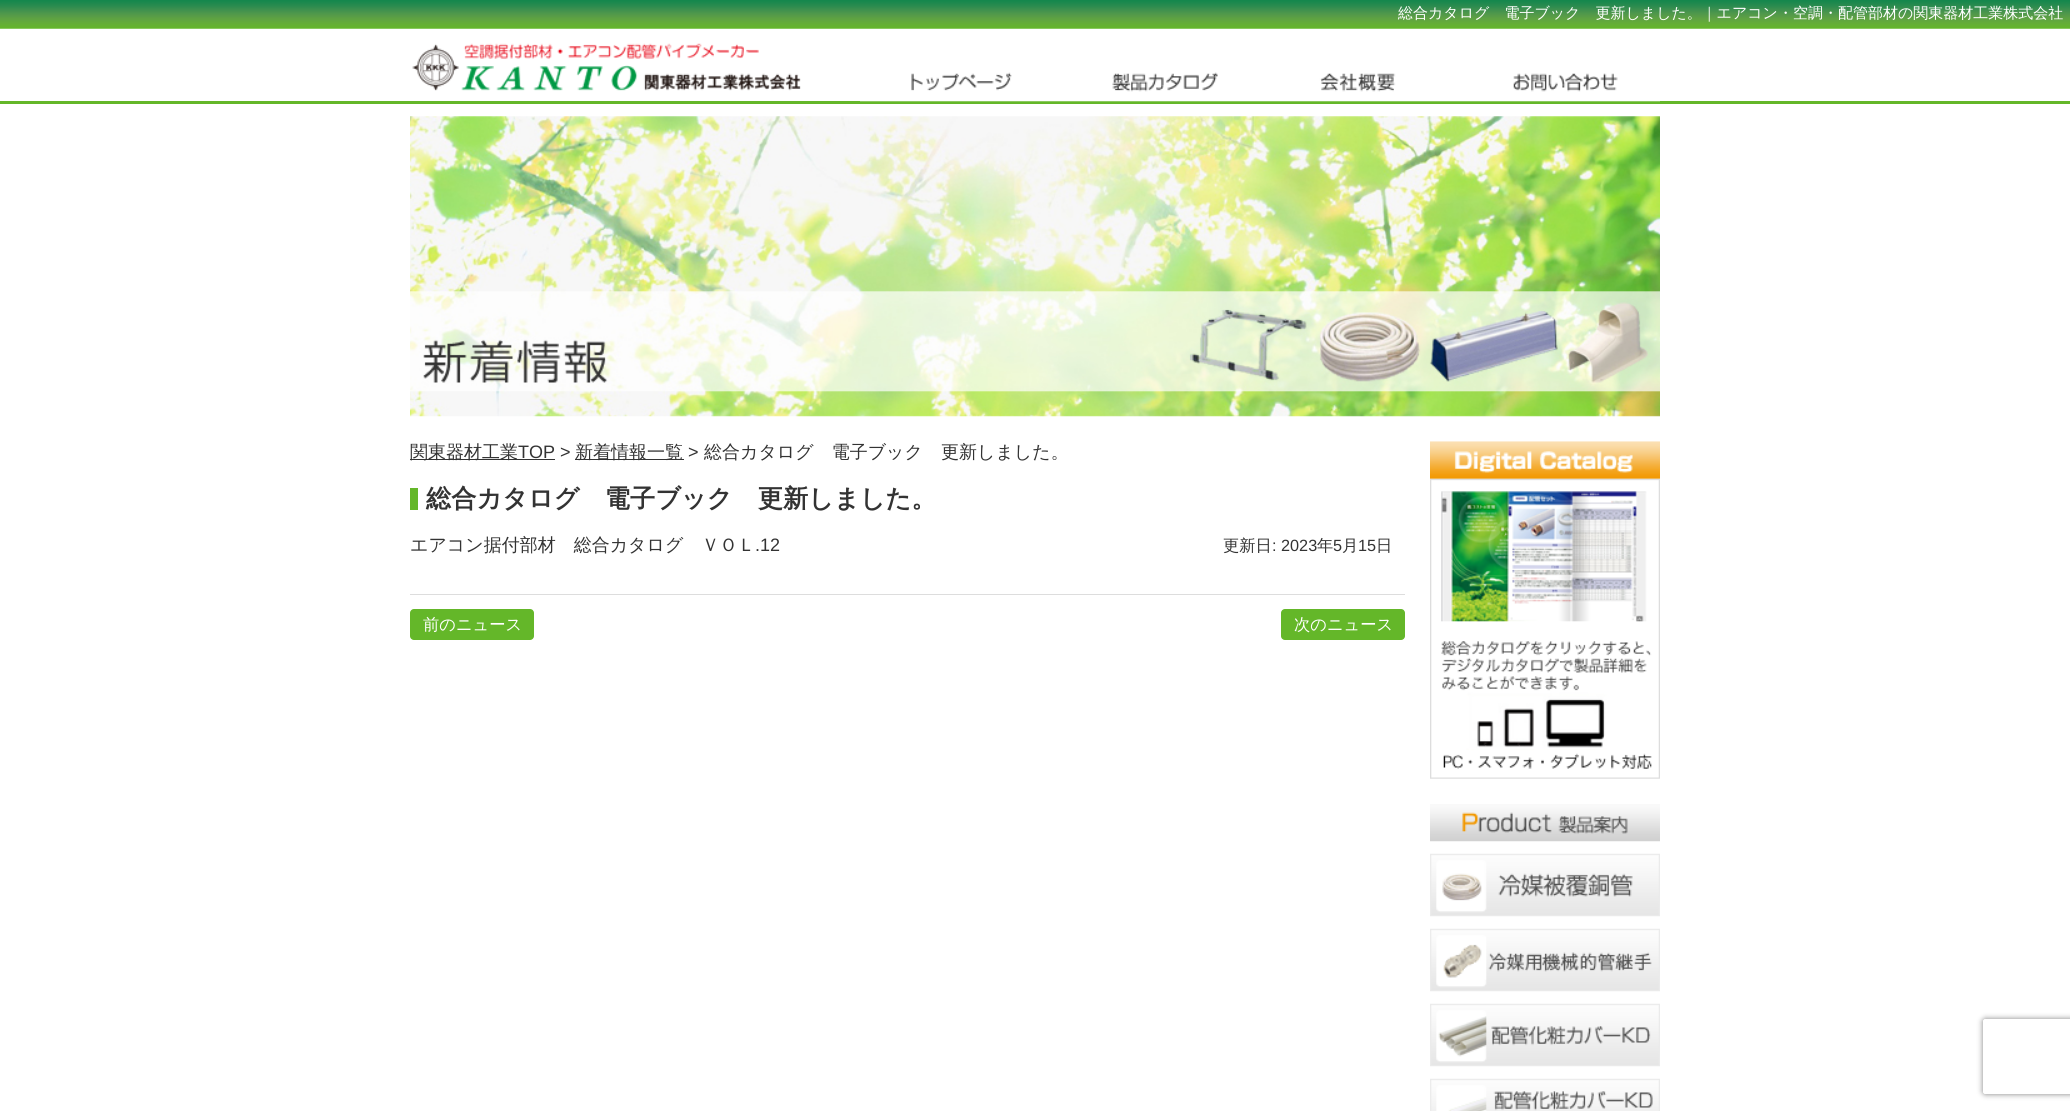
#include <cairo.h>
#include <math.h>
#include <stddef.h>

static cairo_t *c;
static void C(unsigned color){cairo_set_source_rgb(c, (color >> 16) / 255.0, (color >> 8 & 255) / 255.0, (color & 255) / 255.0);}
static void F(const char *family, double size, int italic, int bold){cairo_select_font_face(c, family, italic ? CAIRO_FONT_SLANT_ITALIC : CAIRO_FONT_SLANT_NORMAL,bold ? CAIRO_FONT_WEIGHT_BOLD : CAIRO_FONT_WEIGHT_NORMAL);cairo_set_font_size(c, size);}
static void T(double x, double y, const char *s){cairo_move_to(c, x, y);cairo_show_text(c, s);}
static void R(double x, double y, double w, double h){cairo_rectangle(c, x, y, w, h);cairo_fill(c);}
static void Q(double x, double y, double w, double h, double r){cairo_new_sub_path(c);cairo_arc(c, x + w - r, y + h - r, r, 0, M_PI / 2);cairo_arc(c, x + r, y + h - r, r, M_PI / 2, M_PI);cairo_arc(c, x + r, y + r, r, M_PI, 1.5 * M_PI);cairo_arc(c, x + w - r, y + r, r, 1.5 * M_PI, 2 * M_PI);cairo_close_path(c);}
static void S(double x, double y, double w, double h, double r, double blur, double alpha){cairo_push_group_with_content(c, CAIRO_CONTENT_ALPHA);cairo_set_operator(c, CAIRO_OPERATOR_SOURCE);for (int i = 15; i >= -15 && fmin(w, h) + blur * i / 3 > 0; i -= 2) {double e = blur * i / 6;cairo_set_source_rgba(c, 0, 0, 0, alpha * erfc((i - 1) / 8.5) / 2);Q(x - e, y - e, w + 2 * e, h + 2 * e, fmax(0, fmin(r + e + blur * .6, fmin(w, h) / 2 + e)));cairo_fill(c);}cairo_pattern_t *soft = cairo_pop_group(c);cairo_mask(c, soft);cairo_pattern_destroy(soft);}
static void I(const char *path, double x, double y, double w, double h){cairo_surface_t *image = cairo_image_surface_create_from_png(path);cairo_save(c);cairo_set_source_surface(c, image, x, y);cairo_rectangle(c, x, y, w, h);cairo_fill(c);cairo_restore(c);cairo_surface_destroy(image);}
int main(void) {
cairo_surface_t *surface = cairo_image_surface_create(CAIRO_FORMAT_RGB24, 2070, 1111);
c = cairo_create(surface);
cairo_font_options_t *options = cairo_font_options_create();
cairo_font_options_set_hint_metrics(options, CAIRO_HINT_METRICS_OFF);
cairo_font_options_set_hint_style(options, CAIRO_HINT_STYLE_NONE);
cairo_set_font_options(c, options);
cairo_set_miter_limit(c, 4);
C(0xffffff);
cairo_paint(c);
I("1.png",0,0,2070,29);
F("WenQuanYi Zen Hei Medium",15,0,0);
C(0xffffff);
T(1398,18,"総合カタログ　電子ブック　更新しました。｜エアコン・空調・配管部材の関東器材工業株式会社");
C(0x64b729);
R(0,101,2070,3);
I("2.png",412,43,389,48);
I("3.png",860,72,200,30);
I("4.png",1060,72,200,30);
I("5.png",1260,73,200,29);
I("6.png",1460,73,200,29);
I("7.png",410,116,1250,301);
C(0x333333);
R(410,459,145,1);
F("WenQuanYi Zen Hei Medium",18,0,0);
T(410,458,"関東器材工業");
F("Liberation Sans",18,0,0);
T(518,458,"TOP >");
R(575,459,109,1);
F("WenQuanYi Zen Hei Medium",18,0,0);
T(575,458,"新着情報一覧");
F("Liberation Sans",18,0,0);
T(688,458,">");
F("WenQuanYi Zen Hei Medium",18,0,0);
T(704,458,"総合カタログ　電子ブック　更新しました。");
C(0x64b729);
R(410,488,8,22);
F("WenQuanYi Zen Hei",25.2,0,1);
C(0x333333);
T(426,507,"総合カタログ　電子ブック　更新しました。");
F("WenQuanYi Zen Hei Medium",18,0,0);
T(410,551,"エアコン据付部材　総合カタログ　ＶＯＬ");
F("Liberation Sans",18,0,0);
T(755,551,".12");
F("WenQuanYi Zen Hei Medium",16.25,0,0);
T(1223,551,"更新日");
F("Liberation Sans",16.25,0,0);
T(1272,551,": 2023");
F("WenQuanYi Zen Hei Medium",16.25,0,0);
T(1317,551,"年");
F("Liberation Sans",16.25,0,0);
T(1333,551,"5");
F("WenQuanYi Zen Hei Medium",16.25,0,0);
T(1342,551,"月");
F("Liberation Sans",16.25,0,0);
T(1358,551,"15");
F("WenQuanYi Zen Hei Medium",16.25,0,0);
T(1376,551,"日");
C(0xdddddd);
R(410,594,995,1);
C(0x64b729);
Q(410,609,124,31,4);
cairo_fill(c);
C(0xffffff);
T(423,630,"前のニュース");
C(0x64b729);
Q(1281,609,124,31,4);
cairo_fill(c);
C(0xffffff);
T(1294,630,"次のニュース");
I("8.png",1430,441,230,38);
I("9.png",1430,478,230,301);
I("10.png",1430,804,230,38);
I("11.png",1430,853,230,64);
I("12.png",1430,928,230,64);
I("13.png",1430,1003,230,64);
I("14.png",1430,1078,230,33);
cairo_save(c);
cairo_set_fill_rule(c,CAIRO_FILL_RULE_EVEN_ODD);
cairo_new_path(c);
cairo_move_to(c,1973,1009);
cairo_line_to(c,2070,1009);
cairo_line_to(c,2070,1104);
cairo_line_to(c,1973,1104);
cairo_close_path(c);
cairo_move_to(c,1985.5,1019);
cairo_line_to(c,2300.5,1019);
cairo_curve_to(c,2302,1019,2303,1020,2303,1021.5);
cairo_line_to(c,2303,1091.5);
cairo_curve_to(c,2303,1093,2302,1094,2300.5,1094);
cairo_line_to(c,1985.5,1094);
cairo_curve_to(c,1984,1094,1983,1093,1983,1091.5);
cairo_line_to(c,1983,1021.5);
cairo_curve_to(c,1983,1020,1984,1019,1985.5,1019);
cairo_close_path(c);
cairo_clip(c);
C(0x808080);
S(1983,1019,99,75,2.5,3,1);
cairo_restore(c);
cairo_surface_write_to_png(surface, "o.png");
cairo_font_options_destroy(options);
cairo_destroy(c);
cairo_surface_destroy(surface);
return 0;
}
